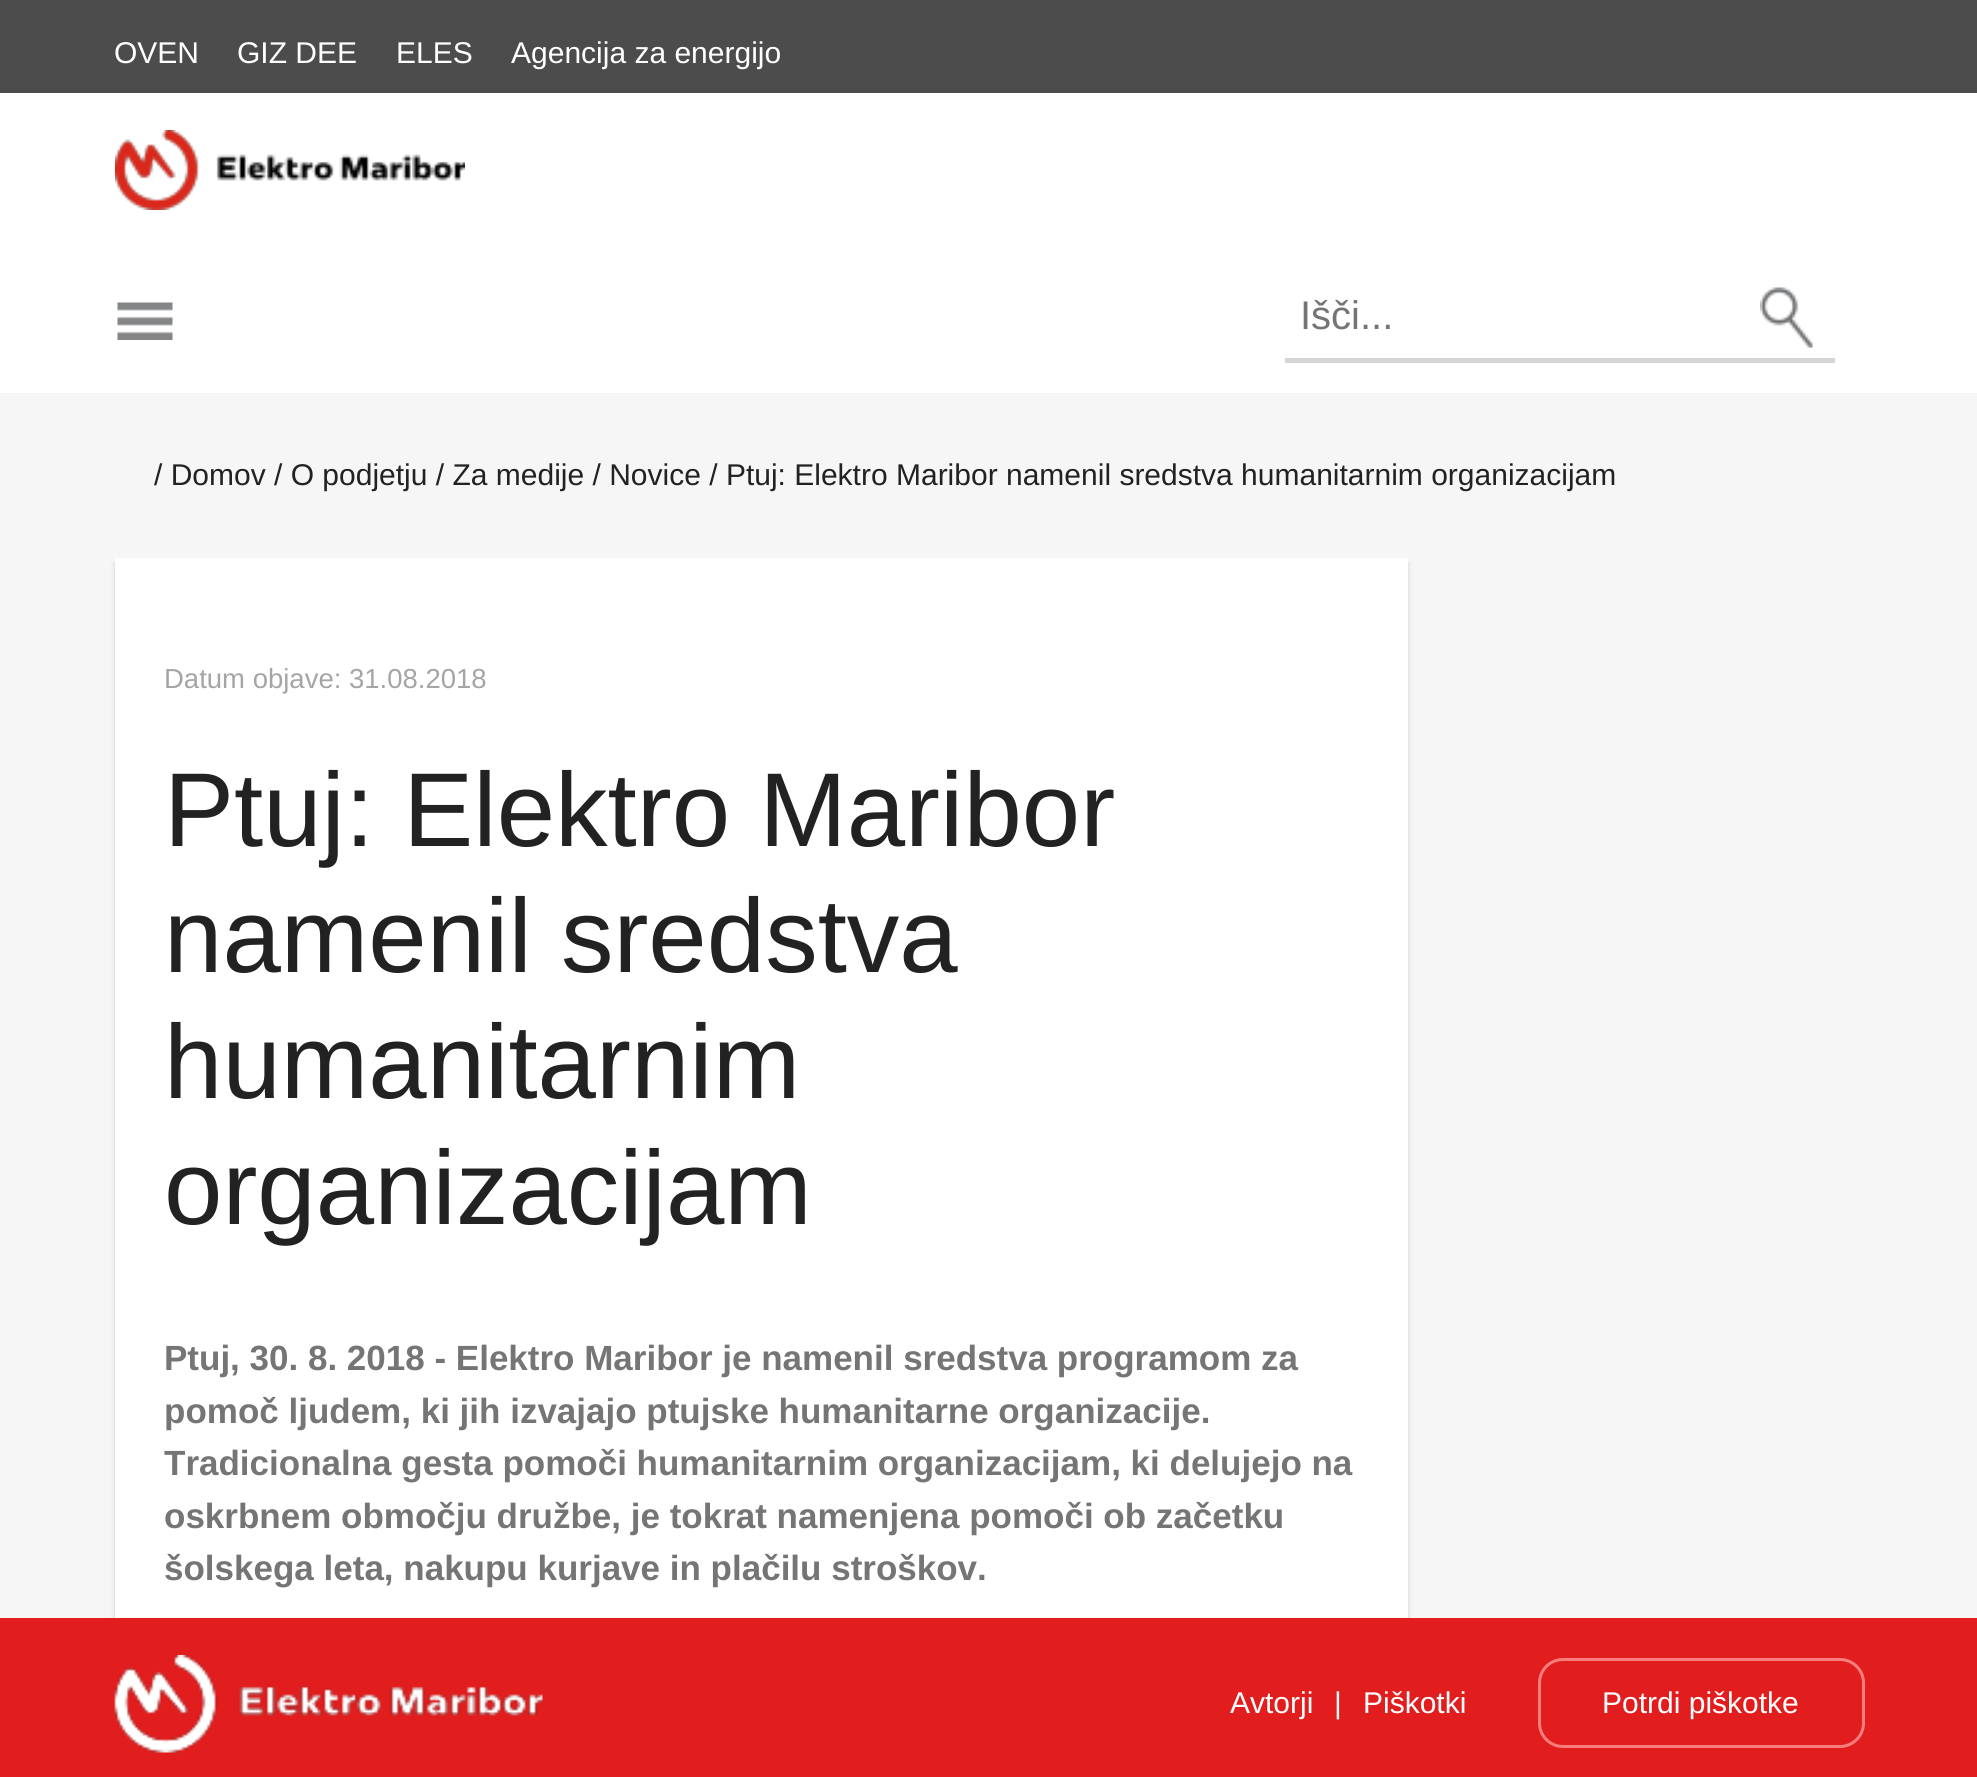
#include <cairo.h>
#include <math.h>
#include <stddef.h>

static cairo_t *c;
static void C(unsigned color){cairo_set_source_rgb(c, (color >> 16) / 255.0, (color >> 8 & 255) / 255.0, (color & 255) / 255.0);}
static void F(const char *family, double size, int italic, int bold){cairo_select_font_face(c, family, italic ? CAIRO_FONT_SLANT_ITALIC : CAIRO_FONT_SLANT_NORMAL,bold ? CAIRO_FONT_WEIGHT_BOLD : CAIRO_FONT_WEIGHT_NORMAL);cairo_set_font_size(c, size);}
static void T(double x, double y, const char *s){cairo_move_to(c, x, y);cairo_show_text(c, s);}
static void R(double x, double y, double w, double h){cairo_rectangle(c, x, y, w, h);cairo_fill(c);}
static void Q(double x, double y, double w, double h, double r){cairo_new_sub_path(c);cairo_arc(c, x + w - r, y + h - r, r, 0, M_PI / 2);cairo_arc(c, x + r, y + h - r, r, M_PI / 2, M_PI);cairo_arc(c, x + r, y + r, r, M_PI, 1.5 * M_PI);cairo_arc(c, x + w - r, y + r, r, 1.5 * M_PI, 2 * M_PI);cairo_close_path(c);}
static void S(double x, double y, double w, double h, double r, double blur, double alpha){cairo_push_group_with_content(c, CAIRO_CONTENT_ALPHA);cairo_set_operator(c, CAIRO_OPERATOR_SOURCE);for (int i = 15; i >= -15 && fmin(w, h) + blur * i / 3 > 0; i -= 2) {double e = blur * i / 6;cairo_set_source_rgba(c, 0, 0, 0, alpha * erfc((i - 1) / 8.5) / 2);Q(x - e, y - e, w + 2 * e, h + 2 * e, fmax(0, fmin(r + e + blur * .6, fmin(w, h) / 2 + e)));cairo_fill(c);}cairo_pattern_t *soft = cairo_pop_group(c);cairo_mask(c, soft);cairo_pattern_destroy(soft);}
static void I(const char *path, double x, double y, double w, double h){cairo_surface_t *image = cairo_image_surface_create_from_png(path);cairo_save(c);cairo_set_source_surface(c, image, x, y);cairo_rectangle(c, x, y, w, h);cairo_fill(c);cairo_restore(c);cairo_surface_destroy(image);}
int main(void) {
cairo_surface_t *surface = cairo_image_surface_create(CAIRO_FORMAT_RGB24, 1977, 1777);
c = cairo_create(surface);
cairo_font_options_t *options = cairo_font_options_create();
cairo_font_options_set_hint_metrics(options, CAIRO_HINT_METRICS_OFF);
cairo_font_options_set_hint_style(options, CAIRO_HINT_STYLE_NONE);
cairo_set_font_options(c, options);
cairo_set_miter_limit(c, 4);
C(0xffffff);
cairo_paint(c);
C(0x4c4c4c);
R(0,0,1977,93);
F("Liberation Sans",30,0,0);
C(0xffffff);
T(114,63,"OVEN");
T(237,63,"GIZ DEE");
T(396,63,"ELES");
T(511,63,"Agencija za energijo");
I("1.png",115,130,350,80);
I("2.png",117,302,56,38);
C(0xd5d5d5);
R(1285,358,550,5);
F("Liberation Sans",40,0,0);
C(0x757575);
T(1300,329,"Išči...");
I("3.png",1760,287,53,61);
C(0xf6f6f6);
R(0,393,1977,1225);
F("Liberation Sans",30,0,0);
C(0x222222);
T(154,485,"/ Domov / O podjetju / Za medije / Novice / Ptuj: Elektro Maribor namenil sredstva humanitarnim organizacijam");
C(0x414147);
S(115,563,1293,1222,0,2.5,.22);
C(0xffffff);
R(115,558,1293,1060);
F("Liberation Sans",27.5,0,0);
C(0xa5a5a5);
T(164,688,"Datum objave: 31.08.2018");
F("Liberation Sans",105,0,0);
C(0x222222);
T(164,846,"Ptuj: Elektro Maribor");
T(164,972,"namenil sredstva");
T(164,1098,"humanitarnim");
T(164,1224,"organizacijam");
F("Liberation Sans",35,0,1);
C(0x757575);
T(164,1370,"Ptuj, 30. 8. 2018 - Elektro Maribor je namenil sredstva programom za");
T(164,1423,"pomoč ljudem, ki jih izvajajo ptujske humanitarne organizacije.");
T(164,1475,"Tradicionalna gesta pomoči humanitarnim organizacijam, ki delujejo na");
T(164,1528,"oskrbnem območju družbe, je tokrat namenjena pomoči ob začetku");
T(164,1580,"šolskega leta, nakupu kurjave in plačilu stroškov.");
C(0xe11d1e);
R(0,1618,1977,159);
I("4.png",114,1655,429,98);
F("Liberation Sans",30,0,0);
C(0xffffff);
T(1230,1713,"Avtorji");
T(1334,1713,"|");
T(1363,1713,"Piškotki");
Q(1539.5,1659.5,324,87,23.5);
C(0xf87e7d);
cairo_set_line_width(c,3);
cairo_stroke(c);
C(0xffffff);
T(1602,1713,"Potrdi piškotke");
cairo_surface_write_to_png(surface, "o.png");
cairo_font_options_destroy(options);
cairo_destroy(c);
cairo_surface_destroy(surface);
return 0;
}
